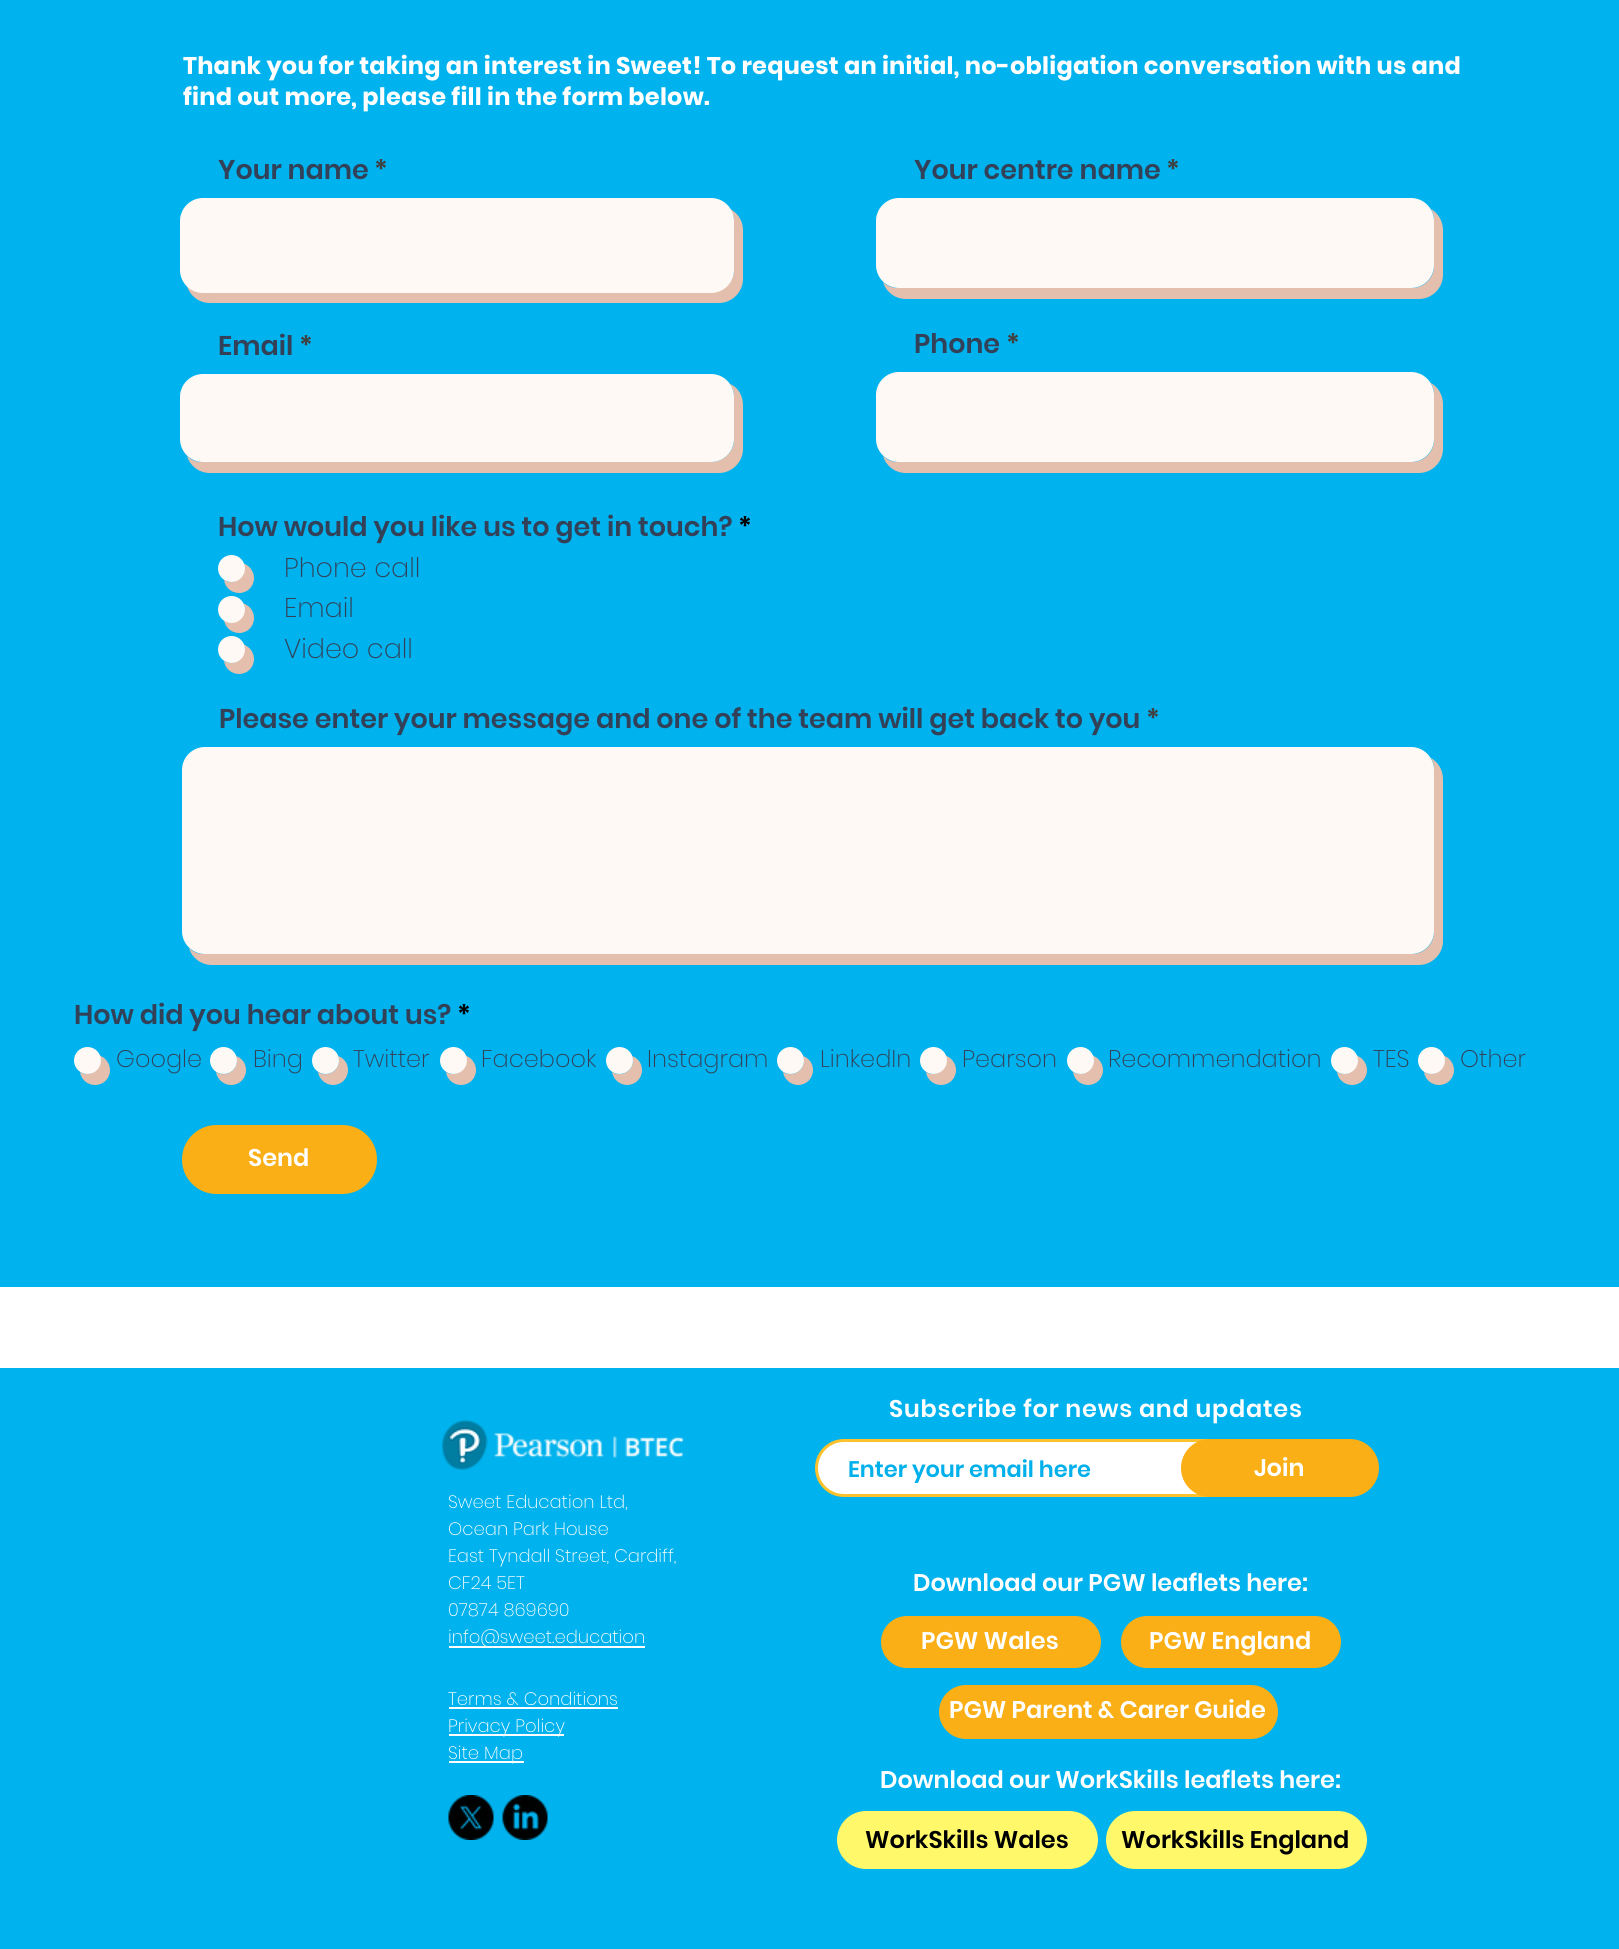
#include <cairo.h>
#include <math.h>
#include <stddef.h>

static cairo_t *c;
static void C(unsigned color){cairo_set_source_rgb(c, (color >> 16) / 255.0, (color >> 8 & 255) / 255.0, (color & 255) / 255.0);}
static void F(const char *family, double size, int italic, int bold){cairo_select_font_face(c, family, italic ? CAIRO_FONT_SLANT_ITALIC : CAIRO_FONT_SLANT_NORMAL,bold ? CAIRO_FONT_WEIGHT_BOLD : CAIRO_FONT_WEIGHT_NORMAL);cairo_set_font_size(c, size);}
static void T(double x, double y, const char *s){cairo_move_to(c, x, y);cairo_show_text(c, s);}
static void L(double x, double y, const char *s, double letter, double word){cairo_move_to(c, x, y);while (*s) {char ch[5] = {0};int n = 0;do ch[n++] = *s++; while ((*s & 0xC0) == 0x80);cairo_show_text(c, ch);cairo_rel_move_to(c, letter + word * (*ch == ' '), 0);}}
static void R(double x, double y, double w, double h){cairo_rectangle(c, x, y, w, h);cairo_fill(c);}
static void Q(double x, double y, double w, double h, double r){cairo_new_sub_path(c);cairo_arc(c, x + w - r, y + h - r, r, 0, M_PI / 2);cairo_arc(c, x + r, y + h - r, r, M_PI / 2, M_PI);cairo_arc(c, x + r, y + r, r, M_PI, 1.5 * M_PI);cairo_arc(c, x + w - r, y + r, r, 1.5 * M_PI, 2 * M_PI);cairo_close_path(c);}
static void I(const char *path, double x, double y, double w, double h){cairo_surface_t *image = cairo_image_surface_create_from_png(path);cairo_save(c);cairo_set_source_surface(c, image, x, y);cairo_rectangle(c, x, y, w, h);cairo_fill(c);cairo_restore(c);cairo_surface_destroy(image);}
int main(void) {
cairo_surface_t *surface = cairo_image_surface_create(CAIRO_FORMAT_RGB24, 1619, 1949);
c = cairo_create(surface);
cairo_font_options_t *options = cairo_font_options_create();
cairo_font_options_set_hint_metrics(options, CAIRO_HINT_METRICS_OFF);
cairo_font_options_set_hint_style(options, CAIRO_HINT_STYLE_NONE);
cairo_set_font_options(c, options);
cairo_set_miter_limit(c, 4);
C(0x00b2ed);
cairo_paint(c);
F("Poppins",24,0,1);
C(0xffffff);
L(183,74,"Thank you for taking an interest in Sweet! To request an initial, no-obligation conversation with us and",.24,0);
L(183,105,"find out more, please fill in the form below.",.24,0);
F("Poppins SemiBold",27,0,0);
C(0x324158);
T(218,179,"Your name");
C(0x404040);
T(374,179,"*");
C(0xe4bfad);
cairo_new_path(c);
cairo_move_to(c,187,286);
cairo_curve_to(c,190,296,199,303,210,303);
cairo_line_to(c,719,303);
cairo_curve_to(c,732,303,743,292,743,279);
cairo_line_to(c,743,230);
cairo_curve_to(c,743,221,738,213,730,209);
cairo_curve_to(c,732,212,734,216,734,220);
cairo_line_to(c,734,270);
cairo_curve_to(c,734,282,723,292,711,292);
cairo_line_to(c,202,292);
cairo_curve_to(c,197,292,191,290,187,286);
cairo_close_path(c);
cairo_fill(c);
C(0xfff9f5);
Q(181.5,199.5,551,92,21.5);
cairo_fill_preserve(c);
cairo_set_line_width(c,3);
cairo_stroke(c);
C(0x324158);
T(914,179,"Your centre name");
C(0x404040);
T(1166,179,"*");
C(0xe4bfad);
cairo_new_path(c);
cairo_move_to(c,883,282);
cairo_curve_to(c,886,292,895,299,906,299);
cairo_line_to(c,1419,299);
cairo_curve_to(c,1432,299,1443,288,1443,275);
cairo_line_to(c,1443,230);
cairo_curve_to(c,1443,221,1438,213,1431,209);
cairo_curve_to(c,1433,213,1434,216,1434,220);
cairo_line_to(c,1434,266);
cairo_curve_to(c,1434,278,1424,288,1412,288);
cairo_line_to(c,898,288);
cairo_curve_to(c,892,288,887,286,883,282);
cairo_close_path(c);
cairo_fill(c);
C(0xfff9f5);
Q(877.5,199.5,555,87,21.5);
cairo_fill_preserve(c);
cairo_stroke(c);
C(0x324158);
T(218,355,"Email");
C(0x404040);
T(299,355,"*");
C(0xe4bfad);
cairo_new_path(c);
cairo_move_to(c,187,456);
cairo_curve_to(c,190,466,199,473,210,473);
cairo_line_to(c,719,473);
cairo_curve_to(c,732,473,743,462,743,449);
cairo_line_to(c,743,405);
cairo_curve_to(c,743,396,738,387,730,384);
cairo_curve_to(c,732,387,734,391,734,396);
cairo_line_to(c,734,440);
cairo_curve_to(c,734,452,723,462,711,462);
cairo_line_to(c,202,462);
cairo_curve_to(c,196,462,191,460,187,456);
cairo_close_path(c);
cairo_fill(c);
C(0xfff9f5);
Q(181.5,375.5,551,85,21.5);
cairo_fill_preserve(c);
cairo_stroke(c);
C(0x324158);
T(914,353,"Phone");
C(0x404040);
T(1006,353,"*");
C(0xe4bfad);
cairo_new_path(c);
cairo_move_to(c,883,456);
cairo_curve_to(c,886,466,895,473,906,473);
cairo_line_to(c,1419,473);
cairo_curve_to(c,1432,473,1443,462,1443,449);
cairo_line_to(c,1443,404);
cairo_curve_to(c,1443,395,1438,387,1431,383);
cairo_curve_to(c,1433,387,1434,390,1434,394);
cairo_line_to(c,1434,440);
cairo_curve_to(c,1434,452,1424,462,1412,462);
cairo_line_to(c,898,462);
cairo_curve_to(c,892,462,887,460,883,456);
cairo_close_path(c);
cairo_fill(c);
C(0xfff9f5);
Q(877.5,373.5,555,87,21.5);
cairo_fill_preserve(c);
cairo_stroke(c);
C(0x324158);
T(218,536,"How would you like us to get in touch?");
C(0x000000);
T(738,536,"*");
C(0xe4bfad);
cairo_new_path(c);
cairo_move_to(c,224,580);
cairo_curve_to(c,225,587.5,231.5,593,239,593);
cairo_curve_to(c,247.5,593,254,586.5,254,578);
cairo_curve_to(c,254,571.5,249.5,565.5,243.5,563.5);
cairo_curve_to(c,248,575.5,235,586.5,224,580);
cairo_close_path(c);
cairo_fill(c);
C(0xfff9f5);
cairo_arc(c,231.5,568.5,12.5,0,2 * M_PI);
cairo_fill_preserve(c);
cairo_set_line_width(c,2);
cairo_stroke(c);
F("Poppins ExtraLight",27,0,0);
C(0x324158);
T(284,577,"Phone call");
C(0xe4bfad);
cairo_new_path(c);
cairo_move_to(c,224,620.5);
cairo_curve_to(c,225.5,627.5,231.5,633,239,633);
cairo_curve_to(c,247.5,633,254,626.5,254,618);
cairo_curve_to(c,254,611,249.5,605.5,243.5,603.5);
cairo_curve_to(c,248.5,615.5,235.5,627,224,620.5);
cairo_close_path(c);
cairo_fill(c);
C(0xfff9f5);
cairo_arc(c,231.5,609.5,12.5,0,2 * M_PI);
cairo_fill_preserve(c);
cairo_stroke(c);
C(0x324158);
T(284,617,"Email");
C(0xe4bfad);
cairo_new_path(c);
cairo_move_to(c,224,661);
cairo_curve_to(c,225,668.5,231.5,674,239,674);
cairo_curve_to(c,247.5,674,254,667.5,254,659);
cairo_curve_to(c,254,652.5,249.5,646.5,243.5,644.5);
cairo_curve_to(c,248,656.5,235,667.5,224,661);
cairo_close_path(c);
cairo_fill(c);
C(0xfff9f5);
cairo_arc(c,231.5,649.5,12.5,0,2 * M_PI);
cairo_fill_preserve(c);
cairo_stroke(c);
C(0x324158);
T(284,658,"Video call");
F("Poppins SemiBold",27,0,0);
T(219,728,"Please enter your message and one of the team will get back to you");
C(0x404040);
T(1146,728,"*");
C(0xe4bfad);
cairo_new_path(c);
cairo_move_to(c,189,948);
cairo_curve_to(c,192,958,201,965,212,965);
cairo_line_to(c,1419,965);
cairo_curve_to(c,1432,965,1443,954,1443,941);
cairo_line_to(c,1443,779);
cairo_curve_to(c,1443,770,1438,762,1431,758);
cairo_curve_to(c,1433,762,1434,765,1434,770);
cairo_line_to(c,1434,932);
cairo_curve_to(c,1434,944,1424,954,1412,954);
cairo_line_to(c,204,954);
cairo_curve_to(c,198,954,193,952,189,948);
cairo_close_path(c);
cairo_fill(c);
C(0xfff9f5);
Q(183.5,748.5,1249,204,21.5);
cairo_fill_preserve(c);
cairo_set_line_width(c,3);
cairo_stroke(c);
C(0x324158);
T(74,1024,"How did you hear about us?");
C(0x000000);
T(457,1024,"*");
C(0xe4bfad);
cairo_new_path(c);
cairo_move_to(c,80,1072);
cairo_curve_to(c,81,1079.5,87.5,1085,95,1085);
cairo_curve_to(c,103.5,1085,110,1078.5,110,1070);
cairo_curve_to(c,110,1063.5,105.5,1057.5,99.5,1055.5);
cairo_curve_to(c,104,1067.5,91,1078.5,80,1072);
cairo_close_path(c);
cairo_fill(c);
C(0xfff9f5);
cairo_arc(c,87.5,1060.5,12.5,0,2 * M_PI);
cairo_fill_preserve(c);
cairo_set_line_width(c,2);
cairo_stroke(c);
F("Poppins ExtraLight",24,0,0);
C(0x324158);
T(116,1067,"Google");
C(0xe4bfad);
cairo_new_path(c);
cairo_move_to(c,216,1072);
cairo_curve_to(c,217,1079,223.5,1085,231,1085);
cairo_curve_to(c,239.5,1085,246,1078.5,246,1070);
cairo_curve_to(c,246,1063.5,242,1058,236,1056);
cairo_curve_to(c,240.5,1068,227,1079,216,1072);
cairo_close_path(c);
cairo_fill(c);
C(0xfff9f5);
cairo_arc(c,223.5,1060.5,12.5,0,2 * M_PI);
cairo_fill_preserve(c);
cairo_stroke(c);
C(0x324158);
T(253,1067,"Bing");
C(0xe4bfad);
cairo_new_path(c);
cairo_move_to(c,318,1072);
cairo_curve_to(c,319,1079,325.5,1085,333,1085);
cairo_curve_to(c,341.5,1085,348,1078.5,348,1070);
cairo_curve_to(c,348,1063.5,344,1058,338,1056);
cairo_curve_to(c,342.5,1068,329,1079,318,1072);
cairo_close_path(c);
cairo_fill(c);
C(0xfff9f5);
cairo_arc(c,325.5,1060.5,12.5,0,2 * M_PI);
cairo_fill_preserve(c);
cairo_stroke(c);
C(0x324158);
T(353,1067,"Twitter");
C(0xe4bfad);
cairo_new_path(c);
cairo_move_to(c,446,1072);
cairo_curve_to(c,447,1079.5,453.5,1085,461,1085);
cairo_curve_to(c,469.5,1085,476,1078.5,476,1070);
cairo_curve_to(c,476,1063.5,471.5,1057.5,465.5,1055.5);
cairo_curve_to(c,470,1067.5,457,1078.5,446,1072);
cairo_close_path(c);
cairo_fill(c);
C(0xfff9f5);
cairo_arc(c,453.5,1060.5,12.5,0,2 * M_PI);
cairo_fill_preserve(c);
cairo_stroke(c);
C(0x324158);
T(481,1067,"Facebook");
C(0xe4bfad);
cairo_new_path(c);
cairo_move_to(c,612,1072);
cairo_curve_to(c,613,1079,619.5,1085,627,1085);
cairo_curve_to(c,635.5,1085,642,1078.5,642,1070);
cairo_curve_to(c,642,1063.5,638,1058,632,1056);
cairo_curve_to(c,636.5,1068,623,1079,612,1072);
cairo_close_path(c);
cairo_fill(c);
C(0xfff9f5);
cairo_arc(c,619.5,1060.5,12.5,0,2 * M_PI);
cairo_fill_preserve(c);
cairo_stroke(c);
C(0x324158);
T(647,1067,"Instagram");
C(0xe4bfad);
cairo_new_path(c);
cairo_move_to(c,783,1072);
cairo_curve_to(c,784,1079,790.5,1085,798,1085);
cairo_curve_to(c,806.5,1085,813,1078.5,813,1070);
cairo_curve_to(c,813,1063.5,809,1058,803,1056);
cairo_curve_to(c,807.5,1068,794,1079,783,1072);
cairo_close_path(c);
cairo_fill(c);
C(0xfff9f5);
cairo_arc(c,790.5,1060.5,12.5,0,2 * M_PI);
cairo_fill_preserve(c);
cairo_stroke(c);
C(0x324158);
T(820,1067,"LinkedIn");
C(0xe4bfad);
cairo_new_path(c);
cairo_move_to(c,926,1072);
cairo_curve_to(c,927,1079.5,933.5,1085,941,1085);
cairo_curve_to(c,949.5,1085,956,1078.5,956,1070);
cairo_curve_to(c,956,1063.5,951.5,1057.5,945.5,1055.5);
cairo_curve_to(c,950,1067.5,937,1078.5,926,1072);
cairo_close_path(c);
cairo_fill(c);
C(0xfff9f5);
cairo_arc(c,933.5,1060.5,12.5,0,2 * M_PI);
cairo_fill_preserve(c);
cairo_stroke(c);
C(0x324158);
T(962,1067,"Pearson");
C(0xe4bfad);
cairo_new_path(c);
cairo_move_to(c,1073,1072);
cairo_curve_to(c,1074,1079.5,1080.5,1085,1088,1085);
cairo_curve_to(c,1096.5,1085,1103,1078.5,1103,1070);
cairo_curve_to(c,1103,1063.5,1098.5,1057.5,1092.5,1055.5);
cairo_curve_to(c,1097,1067.5,1084,1078.5,1073,1072);
cairo_close_path(c);
cairo_fill(c);
C(0xfff9f5);
cairo_arc(c,1080.5,1060.5,12.5,0,2 * M_PI);
cairo_fill_preserve(c);
cairo_stroke(c);
C(0x324158);
T(1108,1067,"Recommendation");
C(0xe4bfad);
cairo_new_path(c);
cairo_move_to(c,1337,1072);
cairo_curve_to(c,1338,1079.5,1344.5,1085,1352,1085);
cairo_curve_to(c,1360.5,1085,1367,1078.5,1367,1070);
cairo_curve_to(c,1367,1063.5,1362.5,1057.5,1356.5,1055.5);
cairo_curve_to(c,1361,1067.5,1348,1078.5,1337,1072);
cairo_close_path(c);
cairo_fill(c);
C(0xfff9f5);
cairo_arc(c,1344.5,1060.5,12.5,0,2 * M_PI);
cairo_fill_preserve(c);
cairo_stroke(c);
C(0x324158);
T(1373,1067,"TES");
C(0xe4bfad);
cairo_new_path(c);
cairo_move_to(c,1424,1072);
cairo_curve_to(c,1425,1079.5,1431.5,1085,1439,1085);
cairo_curve_to(c,1447.5,1085,1454,1078.5,1454,1070);
cairo_curve_to(c,1454,1063.5,1449.5,1057.5,1443.5,1055.5);
cairo_curve_to(c,1448,1067.5,1435,1078.5,1424,1072);
cairo_close_path(c);
cairo_fill(c);
C(0xfff9f5);
cairo_arc(c,1431.5,1060.5,12.5,0,2 * M_PI);
cairo_fill_preserve(c);
cairo_stroke(c);
C(0x324158);
T(1460,1067,"Other");
C(0xf9af15);
Q(182,1125,195,69,34.5);
cairo_fill(c);
F("Poppins SemiBold",24,0,0);
C(0xffffff);
T(248,1166,"Send");
R(0,1287,1619,81);
I("1.png",441,1419,244,51);
F("Poppins ExtraLight",18,0,0);
T(448,1508,"Sweet Education Ltd,");
T(448,1535,"Ocean Park House");
T(448,1562,"East Tyndall Street, Cardiff,");
T(448,1589,"CF24 5ET");
T(448,1616,"07874 869690");
R(449,1646,196,2);
T(448,1643,"info@sweet.education");
T(448,1705,"Terms & Conditions");
R(449,1707,169,2);
R(449,1734,115,2);
T(448,1732,"Privacy Policy");
R(449,1761,75,2);
T(448,1759,"Site Map");
I("2.png",448,1795,46,45);
I("3.png",502,1795,46,45);
F("Poppins SemiBold",24,0,0);
L(889,1417,"Subscribe for news and updates",.75,0);
Q(816.5,1440.5,439,55,27.5);
cairo_fill_preserve(c);
C(0xfcc22d);
cairo_set_line_width(c,3);
cairo_stroke(c);
F("Poppins SemiBold",22.5,0,0);
C(0x00b0eb);
T(848,1477,"Enter your email here");
C(0xf9af15);
Q(1181,1439,198,58,29);
cairo_fill(c);
F("Poppins SemiBold",24,0,0);
C(0xffffff);
T(1254,1476,"Join");
T(913,1591,"Download our PGW leaflets here:");
C(0xf9af15);
Q(881,1616,220,52,26);
cairo_fill(c);
C(0xffffff);
T(921,1649,"PGW Wales");
C(0xf9af15);
Q(1121,1616,220,52,26);
cairo_fill(c);
C(0xffffff);
T(1149,1649,"PGW England");
C(0xf9af15);
Q(939,1685,339,54,27);
cairo_fill(c);
C(0xffffff);
T(949,1718,"PGW Parent & Carer Guide");
T(880,1788,"Download our WorkSkills leaflets here:");
C(0xfff86b);
Q(837,1811,261,58,29);
cairo_fill(c);
C(0x000000);
T(865,1848,"WorkSkills Wales");
C(0xfff86b);
Q(1106,1811,261,58,29);
cairo_fill(c);
C(0x000000);
T(1121,1848,"WorkSkills England");
cairo_surface_write_to_png(surface, "o.png");
cairo_font_options_destroy(options);
cairo_destroy(c);
cairo_surface_destroy(surface);
return 0;
}
